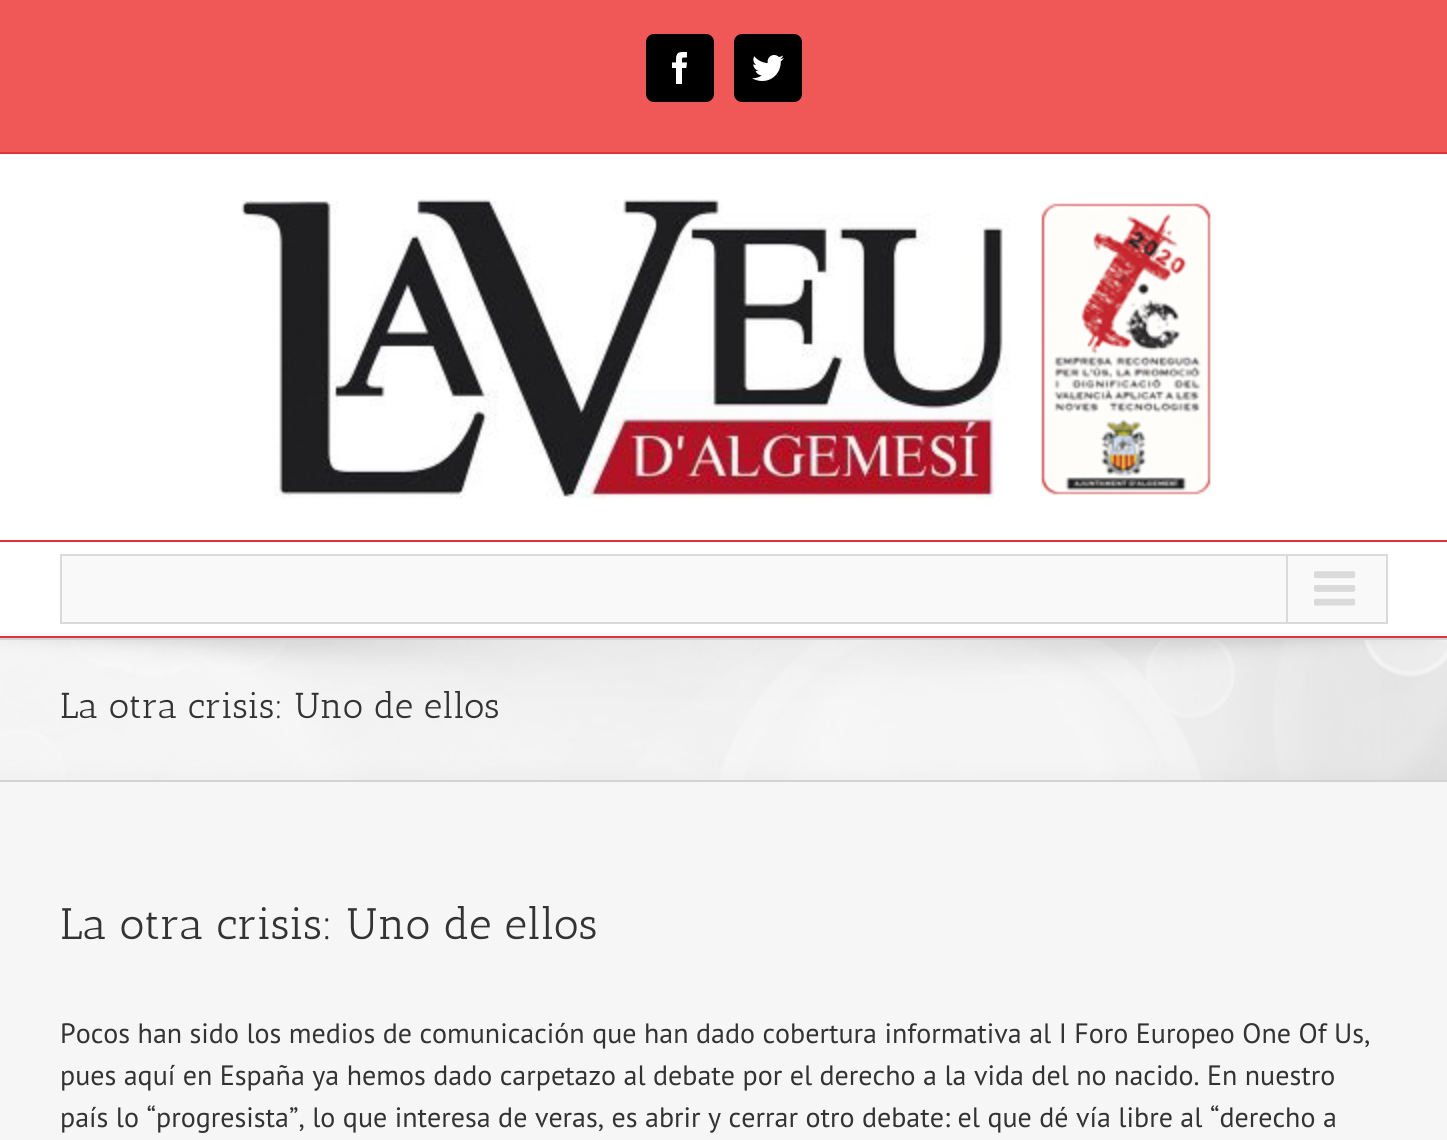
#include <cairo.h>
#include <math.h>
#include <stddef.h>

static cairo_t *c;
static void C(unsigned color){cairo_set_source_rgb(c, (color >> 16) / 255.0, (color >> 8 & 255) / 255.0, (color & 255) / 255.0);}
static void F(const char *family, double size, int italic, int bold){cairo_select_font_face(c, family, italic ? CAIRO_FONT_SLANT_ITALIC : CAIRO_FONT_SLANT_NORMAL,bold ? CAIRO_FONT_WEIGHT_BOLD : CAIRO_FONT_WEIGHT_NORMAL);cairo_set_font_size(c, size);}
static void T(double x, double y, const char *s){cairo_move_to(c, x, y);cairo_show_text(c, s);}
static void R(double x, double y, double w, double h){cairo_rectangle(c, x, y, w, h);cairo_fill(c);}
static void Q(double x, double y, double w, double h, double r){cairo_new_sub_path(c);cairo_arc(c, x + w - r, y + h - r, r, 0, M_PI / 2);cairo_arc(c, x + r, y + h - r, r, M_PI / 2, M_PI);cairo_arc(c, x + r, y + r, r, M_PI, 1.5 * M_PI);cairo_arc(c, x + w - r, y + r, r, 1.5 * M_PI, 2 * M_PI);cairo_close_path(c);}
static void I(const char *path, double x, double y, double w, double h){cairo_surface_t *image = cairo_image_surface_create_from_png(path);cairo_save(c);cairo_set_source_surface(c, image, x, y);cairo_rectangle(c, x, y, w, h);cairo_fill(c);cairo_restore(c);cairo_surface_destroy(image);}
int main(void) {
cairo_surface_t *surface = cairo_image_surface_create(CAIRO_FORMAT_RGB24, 1447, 1140);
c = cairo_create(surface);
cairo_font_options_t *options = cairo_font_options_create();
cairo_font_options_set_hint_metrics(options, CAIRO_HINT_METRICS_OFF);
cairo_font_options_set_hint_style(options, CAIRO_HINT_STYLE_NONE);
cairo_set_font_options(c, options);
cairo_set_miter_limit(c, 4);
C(0xf6f6f6);
cairo_paint(c);
C(0xf05858);
R(0,0,1447,152);
C(0xdd353a);
R(0,152,1447,2);
C(0x000000);
Q(647,35,66,66,7);
cairo_fill_preserve(c);
cairo_stroke(c);
I("1.png",672,52,15,32);
Q(735,35,66,66,7);
cairo_fill_preserve(c);
cairo_stroke(c);
I("2.png",752,55,32,26);
C(0xffffff);
R(0,154,1447,386);
C(0xdd353a);
R(0,540,1447,2);
I("3.png",241,199,970,301);
C(0xffffff);
R(0,542,1447,94);
C(0xdd353a);
R(0,636,1447,2);
C(0xf9f9f9);
cairo_rectangle(c,61,555,1326,68);
cairo_fill_preserve(c);
C(0xdadada);
cairo_stroke(c);
R(1286,556,2,66);
I("4.png",1314,571,42,35);
I("5.png",0,640,1447,140);
C(0xd2d3d4);
R(0,638,1447,2);
R(0,780,1447,2);
F("Antic Slab",36,0,0);
C(0x333333);
T(60,718,"La otra crisis: Uno de ellos");
F("Antic Slab",44,0,0);
T(60,939,"La otra crisis: Uno de ellos");
F("PT Sans",28,0,0);
T(60,1043,"Pocos han sido los medios de comunicación que han dado cobertura informativa al I Foro Europeo One Of Us,");
T(60,1085,"pues aquí en España ya hemos dado carpetazo al debate por el derecho a la vida del no nacido. En nuestro");
T(60,1127,"país lo “progresista”, lo que interesa de veras, es abrir y cerrar otro debate: el que dé vía libre al “derecho a");
cairo_surface_write_to_png(surface, "o.png");
cairo_font_options_destroy(options);
cairo_destroy(c);
cairo_surface_destroy(surface);
return 0;
}
